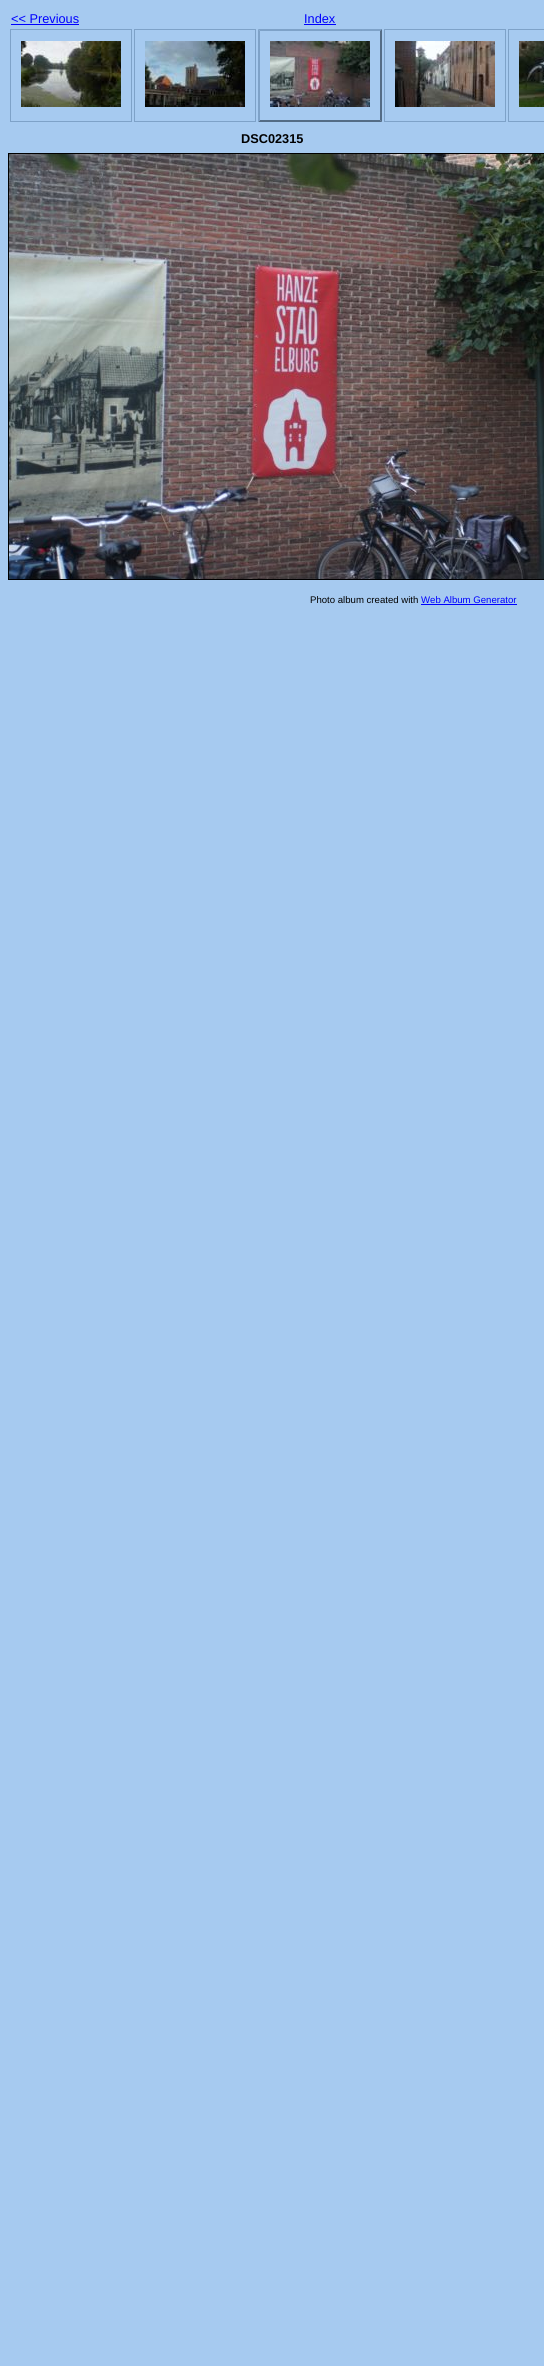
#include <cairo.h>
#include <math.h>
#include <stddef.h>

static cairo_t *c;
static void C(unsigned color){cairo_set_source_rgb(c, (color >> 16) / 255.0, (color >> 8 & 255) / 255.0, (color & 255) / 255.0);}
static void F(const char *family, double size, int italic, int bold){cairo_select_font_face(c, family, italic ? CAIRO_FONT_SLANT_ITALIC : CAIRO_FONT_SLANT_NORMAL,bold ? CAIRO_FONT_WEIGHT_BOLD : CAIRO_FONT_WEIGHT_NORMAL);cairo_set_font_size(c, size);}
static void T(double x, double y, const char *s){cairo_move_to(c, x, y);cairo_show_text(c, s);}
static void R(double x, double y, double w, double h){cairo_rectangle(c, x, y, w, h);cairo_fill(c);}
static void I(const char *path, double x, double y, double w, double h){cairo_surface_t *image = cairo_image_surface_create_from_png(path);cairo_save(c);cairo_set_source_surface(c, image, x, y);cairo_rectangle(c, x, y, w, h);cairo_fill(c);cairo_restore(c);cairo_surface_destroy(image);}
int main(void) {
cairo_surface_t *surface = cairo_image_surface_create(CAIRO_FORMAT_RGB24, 544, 2366);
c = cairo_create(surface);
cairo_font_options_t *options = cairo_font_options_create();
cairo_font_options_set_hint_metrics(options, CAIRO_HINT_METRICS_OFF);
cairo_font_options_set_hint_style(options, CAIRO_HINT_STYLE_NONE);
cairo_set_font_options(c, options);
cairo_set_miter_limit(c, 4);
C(0xa6caf0);
cairo_paint(c);
F("Liberation Sans",12.75,0,0);
C(0x0000ff);
T(11,23,"<< Previous");
R(11,24,68,1);
T(304,23,"Index");
R(304,24,32,1);
cairo_rectangle(c,10.5,29.5,121,92);
C(0x7ea2c8);
cairo_set_line_width(c,1);
cairo_stroke(c);
I("1.png",21,41,100,66);
cairo_rectangle(c,134.5,29.5,121,92);
cairo_stroke(c);
I("2.png",145,41,100,66);
cairo_new_path(c);
cairo_move_to(c,258,29);
cairo_line_to(c,382,29);
cairo_line_to(c,380,31);
cairo_line_to(c,260,31);
cairo_close_path(c);
cairo_fill(c);
C(0x546c85);
cairo_new_path(c);
cairo_move_to(c,382,29);
cairo_line_to(c,382,122);
cairo_line_to(c,380,120);
cairo_line_to(c,380,31);
cairo_close_path(c);
cairo_fill(c);
cairo_new_path(c);
cairo_move_to(c,382,122);
cairo_line_to(c,258,122);
cairo_line_to(c,260,120);
cairo_line_to(c,380,120);
cairo_close_path(c);
cairo_fill(c);
C(0x7ea2c8);
cairo_new_path(c);
cairo_move_to(c,258,122);
cairo_line_to(c,258,29);
cairo_line_to(c,260,31);
cairo_line_to(c,260,120);
cairo_close_path(c);
cairo_fill(c);
I("3.png",270,41,100,66);
cairo_rectangle(c,384.5,29.5,121,92);
cairo_stroke(c);
I("4.png",395,41,100,66);
cairo_rectangle(c,508.5,29.5,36,92);
cairo_stroke(c);
I("5.png",519,41,25,66);
F("Liberation Sans",12.75,0,1);
C(0x000000);
T(241,143,"DSC02315");
cairo_rectangle(c,8.5,153.5,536,426);
cairo_stroke(c);
I("6.png",9,154,535,425);
F("Liberation Sans",9.6,0,0);
T(310,603,"Photo album created with");
C(0x0000ff);
T(421,603,"Web Album Generator");
R(421,604,96,1);
cairo_surface_write_to_png(surface, "o.png");
cairo_font_options_destroy(options);
cairo_destroy(c);
cairo_surface_destroy(surface);
return 0;
}
